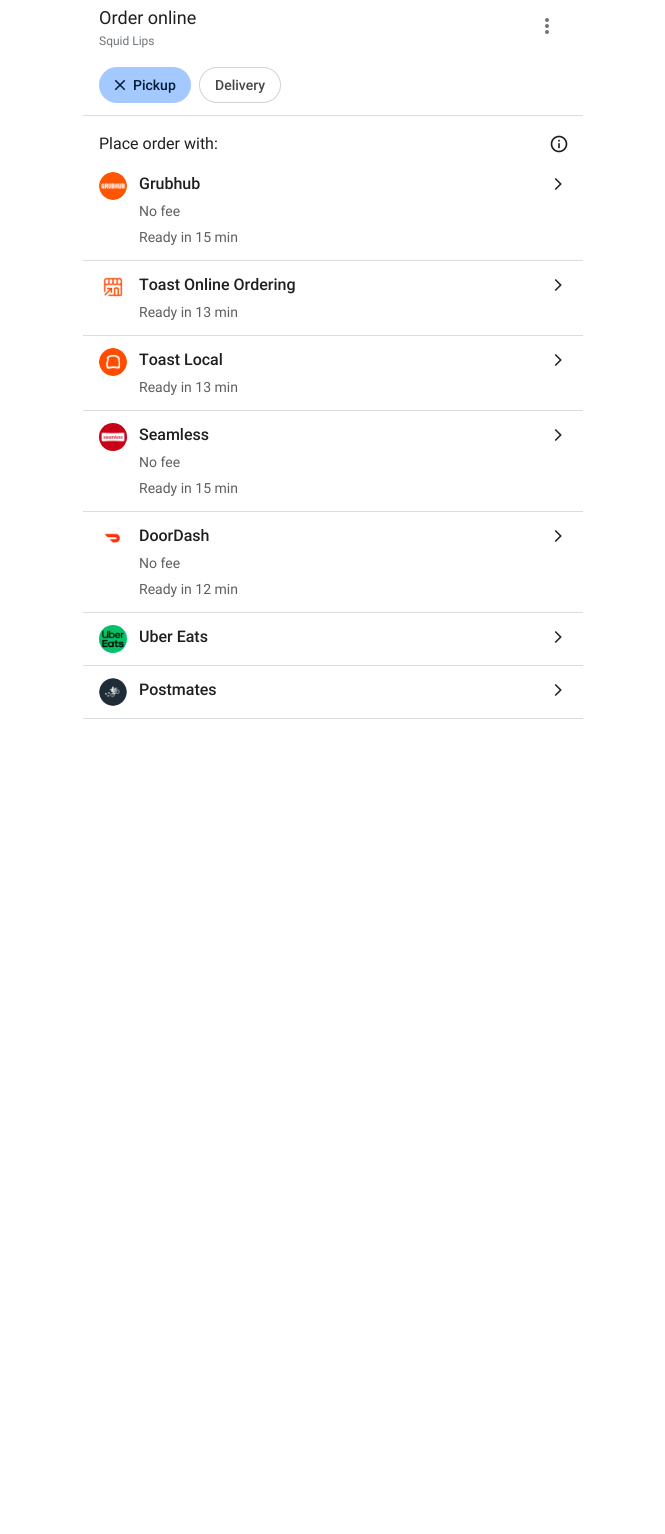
#include <cairo.h>
#include <math.h>
#include <stddef.h>

static cairo_t *c;
static void C(unsigned color){cairo_set_source_rgb(c, (color >> 16) / 255.0, (color >> 8 & 255) / 255.0, (color & 255) / 255.0);}
static void F(const char *family, double size, int italic, int bold){cairo_select_font_face(c, family, italic ? CAIRO_FONT_SLANT_ITALIC : CAIRO_FONT_SLANT_NORMAL,bold ? CAIRO_FONT_WEIGHT_BOLD : CAIRO_FONT_WEIGHT_NORMAL);cairo_set_font_size(c, size);}
static void T(double x, double y, const char *s){cairo_move_to(c, x, y);cairo_show_text(c, s);}
static void R(double x, double y, double w, double h){cairo_rectangle(c, x, y, w, h);cairo_fill(c);}
static void Q(double x, double y, double w, double h, double r){cairo_new_sub_path(c);cairo_arc(c, x + w - r, y + h - r, r, 0, M_PI / 2);cairo_arc(c, x + r, y + h - r, r, M_PI / 2, M_PI);cairo_arc(c, x + r, y + r, r, M_PI, 1.5 * M_PI);cairo_arc(c, x + w - r, y + r, r, 1.5 * M_PI, 2 * M_PI);cairo_close_path(c);}
static void I(const char *path, double x, double y, double w, double h){cairo_surface_t *image = cairo_image_surface_create_from_png(path);cairo_save(c);cairo_set_source_surface(c, image, x, y);cairo_rectangle(c, x, y, w, h);cairo_fill(c);cairo_restore(c);cairo_surface_destroy(image);}
int main(void) {
cairo_surface_t *surface = cairo_image_surface_create(CAIRO_FORMAT_RGB24, 665, 1534);
c = cairo_create(surface);
cairo_font_options_t *options = cairo_font_options_create();
cairo_font_options_set_hint_metrics(options, CAIRO_HINT_METRICS_OFF);
cairo_font_options_set_hint_style(options, CAIRO_HINT_STYLE_NONE);
cairo_set_font_options(c, options);
cairo_set_miter_limit(c, 4);
C(0xffffff);
cairo_paint(c);
F("Roboto",18,0,0);
C(0x1f1f1f);
T(99,24,"Order online");
F("Roboto",12,0,0);
C(0x70757a);
T(99,45,"Squid Lips");
I("1.png",545,18,4,16);
C(0xa3c9ff);
Q(99,67,92,36,18);
cairo_fill(c);
I("2.png",114,79,12,12);
F("Roboto Medium",14,0,0);
C(0x001d35);
T(133,90,"Pickup");
Q(199.5,67.5,81,35,17.5);
C(0xd2d2d2);
cairo_set_line_width(c,1);
cairo_stroke(c);
C(0x474747);
T(215,90,"Delivery");
C(0xdadce0);
R(83,115,500,1);
F("Roboto",16,0,0);
C(0x1f1f1f);
T(99,149,"Place order with:");
I("3.png",550,135,18,18);
I("4.png",99,172,28,28);
F("Roboto Medium",16,0,0);
T(139,189,"Grubhub");
I("5.png",554,178,8,12);
F("Roboto",14,0,0);
C(0x5e5e5e);
T(139,216,"No fee");
T(139,242,"Ready in 15 min");
C(0xdadce0);
R(83,260,500,1);
I("6.png",103,277,20,20);
F("Roboto Medium",16,0,0);
C(0x1f1f1f);
T(139,290,"Toast Online Ordering");
I("5.png",554,279,8,12);
F("Roboto",14,0,0);
C(0x5e5e5e);
T(139,317,"Ready in 13 min");
C(0xdadce0);
R(83,335,500,1);
I("7.png",99,348,28,28);
F("Roboto Medium",16,0,0);
C(0x1f1f1f);
T(139,365,"Toast Local");
I("5.png",554,354,8,12);
F("Roboto",14,0,0);
C(0x5e5e5e);
T(139,392,"Ready in 13 min");
C(0xdadce0);
R(83,410,500,1);
I("8.png",99,423,28,28);
F("Roboto Medium",16,0,0);
C(0x1f1f1f);
T(139,440,"Seamless");
I("5.png",554,429,8,12);
F("Roboto",14,0,0);
C(0x5e5e5e);
T(139,467,"No fee");
T(139,493,"Ready in 15 min");
C(0xdadce0);
R(83,511,500,1);
I("9.png",104,533,16,11);
F("Roboto Medium",16,0,0);
C(0x1f1f1f);
T(139,541,"DoorDash");
I("5.png",554,530,8,12);
F("Roboto",14,0,0);
C(0x5e5e5e);
T(139,568,"No fee");
T(139,594,"Ready in 12 min");
C(0xdadce0);
R(83,612,500,1);
I("10.png",99,625,28,28);
F("Roboto Medium",16,0,0);
C(0x1f1f1f);
T(139,642,"Uber Eats");
I("5.png",554,631,8,12);
C(0xdadce0);
R(83,665,500,1);
I("11.png",99,678,28,28);
C(0x1f1f1f);
T(139,695,"Postmates");
I("5.png",554,684,8,12);
C(0xdadce0);
R(83,718,500,1);
cairo_surface_write_to_png(surface, "o.png");
cairo_font_options_destroy(options);
cairo_destroy(c);
cairo_surface_destroy(surface);
return 0;
}
